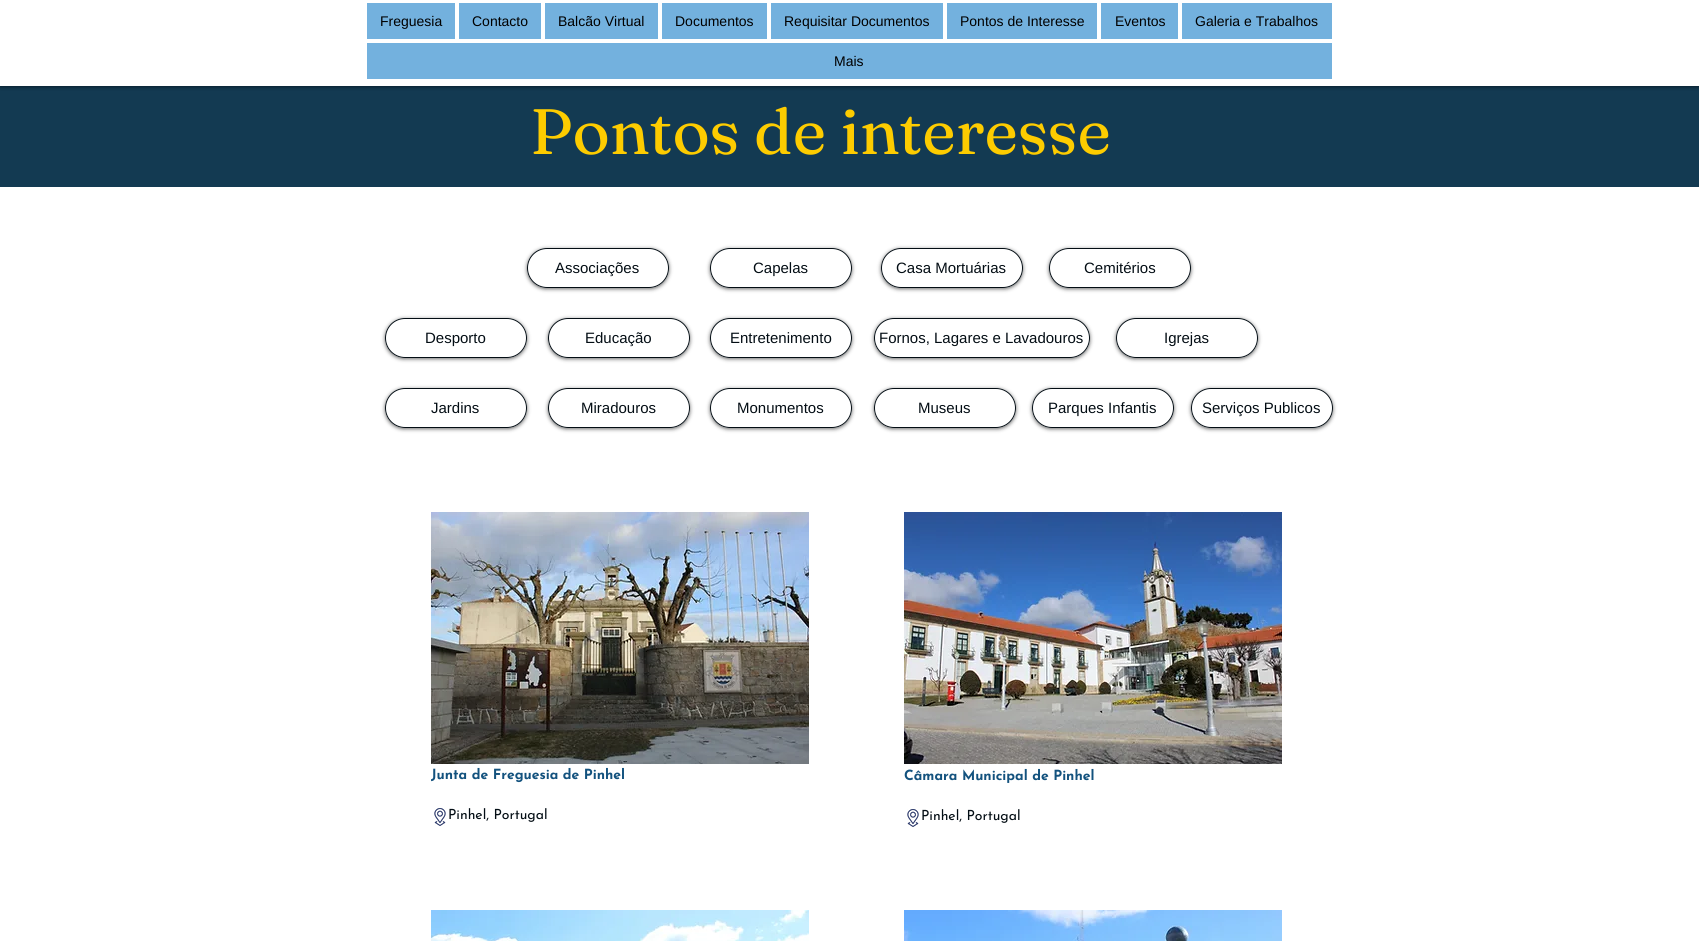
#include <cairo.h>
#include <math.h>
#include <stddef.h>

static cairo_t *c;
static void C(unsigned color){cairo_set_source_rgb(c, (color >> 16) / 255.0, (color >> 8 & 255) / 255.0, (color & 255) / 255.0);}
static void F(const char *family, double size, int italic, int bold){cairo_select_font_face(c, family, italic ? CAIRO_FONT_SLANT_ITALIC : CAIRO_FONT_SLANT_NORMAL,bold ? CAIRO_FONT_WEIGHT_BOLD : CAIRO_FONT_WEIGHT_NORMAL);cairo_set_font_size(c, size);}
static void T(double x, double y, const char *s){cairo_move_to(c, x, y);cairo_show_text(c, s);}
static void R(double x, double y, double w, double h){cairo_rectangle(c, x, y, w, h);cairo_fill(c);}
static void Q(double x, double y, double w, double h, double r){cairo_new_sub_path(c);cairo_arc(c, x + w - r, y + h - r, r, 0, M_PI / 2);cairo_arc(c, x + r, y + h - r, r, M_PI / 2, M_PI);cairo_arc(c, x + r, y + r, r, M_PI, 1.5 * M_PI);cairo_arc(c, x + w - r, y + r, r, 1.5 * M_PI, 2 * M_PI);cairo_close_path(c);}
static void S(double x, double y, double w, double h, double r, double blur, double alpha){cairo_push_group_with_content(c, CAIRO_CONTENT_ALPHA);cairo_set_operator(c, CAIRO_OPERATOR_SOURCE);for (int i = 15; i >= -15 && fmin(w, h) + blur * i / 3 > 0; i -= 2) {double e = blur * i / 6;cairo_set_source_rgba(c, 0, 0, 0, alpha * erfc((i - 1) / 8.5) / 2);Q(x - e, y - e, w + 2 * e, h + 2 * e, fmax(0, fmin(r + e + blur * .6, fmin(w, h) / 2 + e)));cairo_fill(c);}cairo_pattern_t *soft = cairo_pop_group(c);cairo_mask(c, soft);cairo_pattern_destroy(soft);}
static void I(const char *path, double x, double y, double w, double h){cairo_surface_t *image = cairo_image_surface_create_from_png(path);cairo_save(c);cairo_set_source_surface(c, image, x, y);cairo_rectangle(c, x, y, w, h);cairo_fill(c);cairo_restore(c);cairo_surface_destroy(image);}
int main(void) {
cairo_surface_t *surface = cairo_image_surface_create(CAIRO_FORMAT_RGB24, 1699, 941);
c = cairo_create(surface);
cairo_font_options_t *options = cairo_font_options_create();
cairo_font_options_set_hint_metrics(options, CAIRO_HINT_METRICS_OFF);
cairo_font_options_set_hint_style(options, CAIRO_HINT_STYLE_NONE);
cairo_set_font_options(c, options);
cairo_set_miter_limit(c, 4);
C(0xffffff);
cairo_paint(c);
C(0x133a52);
R(0,86,1699,101);
cairo_save(c);
cairo_rectangle(c,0,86,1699,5);
cairo_clip(c);
C(0x000000);
S(0,-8,1699,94,0,2.5,.7);
cairo_restore(c);
C(0x73b1de);
R(367,3,88,36);
F("Liberation Sans",14,0,0);
C(0x000000);
T(380,26,"Freguesia");
C(0x73b1de);
R(459,3,82,36);
C(0x000000);
T(472,26,"Contacto");
C(0x73b1de);
R(545,3,113,36);
C(0x000000);
T(558,26,"Balcão Virtual");
C(0x73b1de);
R(662,3,105,36);
C(0x000000);
T(675,26,"Documentos");
C(0x73b1de);
R(771,3,172,36);
C(0x000000);
T(784,26,"Requisitar Documentos");
C(0x73b1de);
R(947,3,150,36);
C(0x000000);
T(960,26,"Pontos de Interesse");
C(0x73b1de);
R(1101,3,77,36);
C(0x000000);
T(1115,26,"Eventos");
C(0x73b1de);
R(1182,3,150,36);
C(0x000000);
T(1195,26,"Galeria e Trabalhos");
C(0x73b1de);
R(367,43,965,36);
C(0x000000);
T(834,66,"Mais");
F("Fraunces",64,0,0);
C(0xfdcc00);
T(530,154,"Pontos de interesse");
cairo_save(c);
cairo_set_fill_rule(c,CAIRO_FILL_RULE_EVEN_ODD);
cairo_new_path(c);
cairo_move_to(c,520,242);
cairo_line_to(c,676,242);
cairo_line_to(c,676,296);
cairo_line_to(c,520,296);
cairo_close_path(c);
cairo_move_to(c,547,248);
cairo_line_to(c,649,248);
cairo_curve_to(c,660,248,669,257,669,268);
cairo_curve_to(c,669,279,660,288,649,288);
cairo_line_to(c,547,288);
cairo_curve_to(c,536,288,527,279,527,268);
cairo_curve_to(c,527,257,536,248,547,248);
cairo_close_path(c);
cairo_clip(c);
C(0x000000);
S(527,249,142,40,20,2,.6);
cairo_restore(c);
Q(527.5,248.5,141,39,19.5);
C(0x030d14);
cairo_set_line_width(c,1);
cairo_stroke(c);
F("Liberation Sans",15,0,0);
T(555,273,"Associações");
cairo_save(c);
cairo_set_fill_rule(c,CAIRO_FILL_RULE_EVEN_ODD);
cairo_new_path(c);
cairo_move_to(c,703,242);
cairo_line_to(c,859,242);
cairo_line_to(c,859,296);
cairo_line_to(c,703,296);
cairo_close_path(c);
cairo_move_to(c,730,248);
cairo_line_to(c,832,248);
cairo_curve_to(c,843,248,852,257,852,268);
cairo_curve_to(c,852,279,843,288,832,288);
cairo_line_to(c,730,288);
cairo_curve_to(c,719,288,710,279,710,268);
cairo_curve_to(c,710,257,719,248,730,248);
cairo_close_path(c);
cairo_clip(c);
C(0x000000);
S(710,249,142,40,20,2,.6);
cairo_restore(c);
Q(710.5,248.5,141,39,19.5);
cairo_stroke(c);
T(753,273,"Capelas");
cairo_save(c);
cairo_set_fill_rule(c,CAIRO_FILL_RULE_EVEN_ODD);
cairo_new_path(c);
cairo_move_to(c,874,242);
cairo_line_to(c,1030,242);
cairo_line_to(c,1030,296);
cairo_line_to(c,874,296);
cairo_close_path(c);
cairo_move_to(c,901,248);
cairo_line_to(c,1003,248);
cairo_curve_to(c,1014,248,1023,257,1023,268);
cairo_curve_to(c,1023,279,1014,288,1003,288);
cairo_line_to(c,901,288);
cairo_curve_to(c,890,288,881,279,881,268);
cairo_curve_to(c,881,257,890,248,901,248);
cairo_close_path(c);
cairo_clip(c);
C(0x000000);
S(881,249,142,40,20,2,.6);
cairo_restore(c);
Q(881.5,248.5,141,39,19.5);
cairo_stroke(c);
T(896,273,"Casa Mortuárias");
cairo_save(c);
cairo_set_fill_rule(c,CAIRO_FILL_RULE_EVEN_ODD);
cairo_new_path(c);
cairo_move_to(c,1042,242);
cairo_line_to(c,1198,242);
cairo_line_to(c,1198,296);
cairo_line_to(c,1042,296);
cairo_close_path(c);
cairo_move_to(c,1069,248);
cairo_line_to(c,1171,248);
cairo_curve_to(c,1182,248,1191,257,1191,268);
cairo_curve_to(c,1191,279,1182,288,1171,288);
cairo_line_to(c,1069,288);
cairo_curve_to(c,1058,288,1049,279,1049,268);
cairo_curve_to(c,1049,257,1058,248,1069,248);
cairo_close_path(c);
cairo_clip(c);
C(0x000000);
S(1049,249,142,40,20,2,.6);
cairo_restore(c);
Q(1049.5,248.5,141,39,19.5);
cairo_stroke(c);
T(1084,273,"Cemitérios");
cairo_save(c);
cairo_set_fill_rule(c,CAIRO_FILL_RULE_EVEN_ODD);
cairo_new_path(c);
cairo_move_to(c,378,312);
cairo_line_to(c,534,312);
cairo_line_to(c,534,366);
cairo_line_to(c,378,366);
cairo_close_path(c);
cairo_move_to(c,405,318);
cairo_line_to(c,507,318);
cairo_curve_to(c,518,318,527,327,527,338);
cairo_curve_to(c,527,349,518,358,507,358);
cairo_line_to(c,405,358);
cairo_curve_to(c,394,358,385,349,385,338);
cairo_curve_to(c,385,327,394,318,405,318);
cairo_close_path(c);
cairo_clip(c);
C(0x000000);
S(385,319,142,40,20,2,.6);
cairo_restore(c);
Q(385.5,318.5,141,39,19.5);
cairo_stroke(c);
T(425,343,"Desporto");
cairo_save(c);
cairo_set_fill_rule(c,CAIRO_FILL_RULE_EVEN_ODD);
cairo_new_path(c);
cairo_move_to(c,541,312);
cairo_line_to(c,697,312);
cairo_line_to(c,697,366);
cairo_line_to(c,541,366);
cairo_close_path(c);
cairo_move_to(c,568,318);
cairo_line_to(c,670,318);
cairo_curve_to(c,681,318,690,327,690,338);
cairo_curve_to(c,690,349,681,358,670,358);
cairo_line_to(c,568,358);
cairo_curve_to(c,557,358,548,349,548,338);
cairo_curve_to(c,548,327,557,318,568,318);
cairo_close_path(c);
cairo_clip(c);
C(0x000000);
S(548,319,142,40,20,2,.6);
cairo_restore(c);
Q(548.5,318.5,141,39,19.5);
cairo_stroke(c);
T(585,343,"Educação");
cairo_save(c);
cairo_set_fill_rule(c,CAIRO_FILL_RULE_EVEN_ODD);
cairo_new_path(c);
cairo_move_to(c,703,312);
cairo_line_to(c,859,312);
cairo_line_to(c,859,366);
cairo_line_to(c,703,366);
cairo_close_path(c);
cairo_move_to(c,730,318);
cairo_line_to(c,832,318);
cairo_curve_to(c,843,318,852,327,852,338);
cairo_curve_to(c,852,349,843,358,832,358);
cairo_line_to(c,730,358);
cairo_curve_to(c,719,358,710,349,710,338);
cairo_curve_to(c,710,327,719,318,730,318);
cairo_close_path(c);
cairo_clip(c);
C(0x000000);
S(710,319,142,40,20,2,.6);
cairo_restore(c);
Q(710.5,318.5,141,39,19.5);
cairo_stroke(c);
T(730,343,"Entretenimento");
cairo_save(c);
cairo_set_fill_rule(c,CAIRO_FILL_RULE_EVEN_ODD);
cairo_new_path(c);
cairo_move_to(c,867,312);
cairo_line_to(c,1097,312);
cairo_line_to(c,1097,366);
cairo_line_to(c,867,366);
cairo_close_path(c);
cairo_move_to(c,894,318);
cairo_line_to(c,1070,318);
cairo_curve_to(c,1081,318,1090,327,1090,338);
cairo_curve_to(c,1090,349,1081,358,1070,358);
cairo_line_to(c,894,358);
cairo_curve_to(c,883,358,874,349,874,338);
cairo_curve_to(c,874,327,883,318,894,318);
cairo_close_path(c);
cairo_clip(c);
C(0x000000);
S(874,319,216,40,20,2,.6);
cairo_restore(c);
Q(874.5,318.5,215,39,19.5);
cairo_stroke(c);
T(879,343,"Fornos, Lagares e Lavadouros");
cairo_save(c);
cairo_set_fill_rule(c,CAIRO_FILL_RULE_EVEN_ODD);
cairo_new_path(c);
cairo_move_to(c,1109,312);
cairo_line_to(c,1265,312);
cairo_line_to(c,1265,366);
cairo_line_to(c,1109,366);
cairo_close_path(c);
cairo_move_to(c,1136,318);
cairo_line_to(c,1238,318);
cairo_curve_to(c,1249,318,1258,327,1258,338);
cairo_curve_to(c,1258,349,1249,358,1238,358);
cairo_line_to(c,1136,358);
cairo_curve_to(c,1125,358,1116,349,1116,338);
cairo_curve_to(c,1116,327,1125,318,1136,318);
cairo_close_path(c);
cairo_clip(c);
C(0x000000);
S(1116,319,142,40,20,2,.6);
cairo_restore(c);
Q(1116.5,318.5,141,39,19.5);
cairo_stroke(c);
T(1164,343,"Igrejas");
cairo_save(c);
cairo_set_fill_rule(c,CAIRO_FILL_RULE_EVEN_ODD);
cairo_new_path(c);
cairo_move_to(c,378,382);
cairo_line_to(c,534,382);
cairo_line_to(c,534,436);
cairo_line_to(c,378,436);
cairo_close_path(c);
cairo_move_to(c,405,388);
cairo_line_to(c,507,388);
cairo_curve_to(c,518,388,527,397,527,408);
cairo_curve_to(c,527,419,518,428,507,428);
cairo_line_to(c,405,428);
cairo_curve_to(c,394,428,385,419,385,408);
cairo_curve_to(c,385,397,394,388,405,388);
cairo_close_path(c);
cairo_clip(c);
C(0x000000);
S(385,389,142,40,20,2,.6);
cairo_restore(c);
Q(385.5,388.5,141,39,19.5);
cairo_stroke(c);
T(431,413,"Jardins");
cairo_save(c);
cairo_set_fill_rule(c,CAIRO_FILL_RULE_EVEN_ODD);
cairo_new_path(c);
cairo_move_to(c,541,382);
cairo_line_to(c,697,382);
cairo_line_to(c,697,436);
cairo_line_to(c,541,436);
cairo_close_path(c);
cairo_move_to(c,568,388);
cairo_line_to(c,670,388);
cairo_curve_to(c,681,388,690,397,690,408);
cairo_curve_to(c,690,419,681,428,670,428);
cairo_line_to(c,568,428);
cairo_curve_to(c,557,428,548,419,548,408);
cairo_curve_to(c,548,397,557,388,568,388);
cairo_close_path(c);
cairo_clip(c);
C(0x000000);
S(548,389,142,40,20,2,.6);
cairo_restore(c);
Q(548.5,388.5,141,39,19.5);
cairo_stroke(c);
T(581,413,"Miradouros");
cairo_save(c);
cairo_set_fill_rule(c,CAIRO_FILL_RULE_EVEN_ODD);
cairo_new_path(c);
cairo_move_to(c,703,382);
cairo_line_to(c,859,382);
cairo_line_to(c,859,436);
cairo_line_to(c,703,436);
cairo_close_path(c);
cairo_move_to(c,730,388);
cairo_line_to(c,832,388);
cairo_curve_to(c,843,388,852,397,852,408);
cairo_curve_to(c,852,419,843,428,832,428);
cairo_line_to(c,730,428);
cairo_curve_to(c,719,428,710,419,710,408);
cairo_curve_to(c,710,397,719,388,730,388);
cairo_close_path(c);
cairo_clip(c);
C(0x000000);
S(710,389,142,40,20,2,.6);
cairo_restore(c);
Q(710.5,388.5,141,39,19.5);
cairo_stroke(c);
T(737,413,"Monumentos");
cairo_save(c);
cairo_set_fill_rule(c,CAIRO_FILL_RULE_EVEN_ODD);
cairo_new_path(c);
cairo_move_to(c,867,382);
cairo_line_to(c,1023,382);
cairo_line_to(c,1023,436);
cairo_line_to(c,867,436);
cairo_close_path(c);
cairo_move_to(c,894,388);
cairo_line_to(c,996,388);
cairo_curve_to(c,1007,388,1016,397,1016,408);
cairo_curve_to(c,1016,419,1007,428,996,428);
cairo_line_to(c,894,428);
cairo_curve_to(c,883,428,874,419,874,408);
cairo_curve_to(c,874,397,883,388,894,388);
cairo_close_path(c);
cairo_clip(c);
C(0x000000);
S(874,389,142,40,20,2,.6);
cairo_restore(c);
Q(874.5,388.5,141,39,19.5);
cairo_stroke(c);
T(918,413,"Museus");
cairo_save(c);
cairo_set_fill_rule(c,CAIRO_FILL_RULE_EVEN_ODD);
cairo_new_path(c);
cairo_move_to(c,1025,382);
cairo_line_to(c,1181,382);
cairo_line_to(c,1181,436);
cairo_line_to(c,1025,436);
cairo_close_path(c);
cairo_move_to(c,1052,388);
cairo_line_to(c,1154,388);
cairo_curve_to(c,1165,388,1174,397,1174,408);
cairo_curve_to(c,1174,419,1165,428,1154,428);
cairo_line_to(c,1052,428);
cairo_curve_to(c,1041,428,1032,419,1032,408);
cairo_curve_to(c,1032,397,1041,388,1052,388);
cairo_close_path(c);
cairo_clip(c);
C(0x000000);
S(1032,389,142,40,20,2,.6);
cairo_restore(c);
Q(1032.5,388.5,141,39,19.5);
cairo_stroke(c);
T(1048,413,"Parques Infantis");
cairo_save(c);
cairo_set_fill_rule(c,CAIRO_FILL_RULE_EVEN_ODD);
cairo_new_path(c);
cairo_move_to(c,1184,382);
cairo_line_to(c,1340,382);
cairo_line_to(c,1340,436);
cairo_line_to(c,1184,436);
cairo_close_path(c);
cairo_move_to(c,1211,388);
cairo_line_to(c,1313,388);
cairo_curve_to(c,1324,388,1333,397,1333,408);
cairo_curve_to(c,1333,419,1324,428,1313,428);
cairo_line_to(c,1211,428);
cairo_curve_to(c,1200,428,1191,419,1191,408);
cairo_curve_to(c,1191,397,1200,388,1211,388);
cairo_close_path(c);
cairo_clip(c);
C(0x000000);
S(1191,389,142,40,20,2,.6);
cairo_restore(c);
Q(1191.5,388.5,141,39,19.5);
cairo_stroke(c);
T(1202,413,"Serviços Publicos");
I("1.png",431,512,378,252);
I("2.png",904,512,378,252);
F("Josefin Sans Thin",14,0,0);
C(0x13527e);
T(431,779,"Junta de Freguesia de Pinhel");
F("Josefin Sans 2 Thin",14,0,0);
C(0x030d14);
T(448,819,"Pinhel, Portugal");
I("3.png",434,808,12,18);
F("Josefin Sans Thin",14,0,0);
C(0x13527e);
T(904,780,"Câmara Municipal de Pinhel");
F("Josefin Sans 2 Thin",14,0,0);
C(0x030d14);
T(921,820,"Pinhel, Portugal");
I("3.png",907,809,12,18);
I("4.png",431,910,378,31);
I("5.png",904,910,378,31);
cairo_surface_write_to_png(surface, "o.png");
cairo_font_options_destroy(options);
cairo_destroy(c);
cairo_surface_destroy(surface);
return 0;
}
